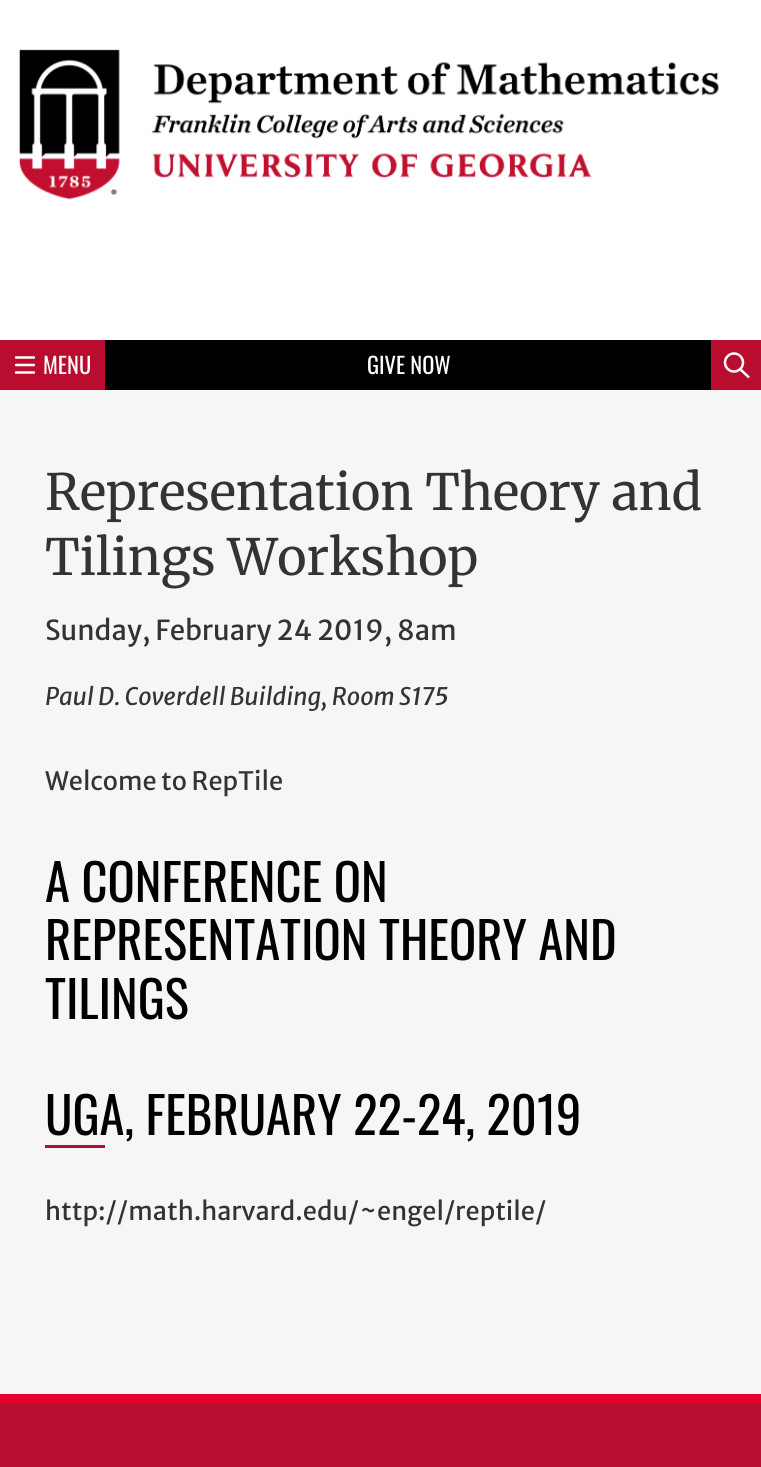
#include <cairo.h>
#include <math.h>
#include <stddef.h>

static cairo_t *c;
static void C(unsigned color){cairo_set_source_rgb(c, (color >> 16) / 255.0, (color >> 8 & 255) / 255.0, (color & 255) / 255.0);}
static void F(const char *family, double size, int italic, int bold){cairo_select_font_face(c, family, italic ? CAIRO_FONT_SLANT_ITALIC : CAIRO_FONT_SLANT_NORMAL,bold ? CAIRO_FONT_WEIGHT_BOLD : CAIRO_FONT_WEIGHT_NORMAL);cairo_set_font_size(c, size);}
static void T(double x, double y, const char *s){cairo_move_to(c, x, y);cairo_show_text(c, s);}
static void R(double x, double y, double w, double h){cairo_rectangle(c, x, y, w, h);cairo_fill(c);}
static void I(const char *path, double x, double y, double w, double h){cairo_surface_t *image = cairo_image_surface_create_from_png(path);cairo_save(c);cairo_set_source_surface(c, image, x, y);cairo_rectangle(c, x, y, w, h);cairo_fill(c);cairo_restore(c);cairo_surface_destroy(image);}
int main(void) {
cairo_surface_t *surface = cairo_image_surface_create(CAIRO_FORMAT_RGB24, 761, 1467);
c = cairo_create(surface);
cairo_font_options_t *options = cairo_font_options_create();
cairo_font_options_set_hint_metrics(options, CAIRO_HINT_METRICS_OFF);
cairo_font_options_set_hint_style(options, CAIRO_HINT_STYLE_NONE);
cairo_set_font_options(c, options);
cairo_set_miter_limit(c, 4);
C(0xffffff);
cairo_paint(c);
I("1.png",19,49,700,151);
C(0x000000);
R(105,340,606,50);
C(0xba0c2f);
R(0,340,105,50);
cairo_save(c);
cairo_rectangle(c,15,356,20,18);
cairo_clip(c);
cairo_new_path(c);
cairo_move_to(c,16,357.5);
cairo_line_to(c,34,357.5);
cairo_move_to(c,16,365);
cairo_line_to(c,34,365);
cairo_move_to(c,16,372.5);
cairo_line_to(c,34,372.5);
C(0xffffff);
cairo_set_line_width(c,2.5);
cairo_set_line_cap(c,CAIRO_LINE_CAP_ROUND);
cairo_stroke(c);
cairo_restore(c);
F("Oswald",22.5,0,0);
C(0xffffff);
T(43,374,"MENU");
T(367,374,"GIVE NOW");
C(0xba0c2f);
R(711,340,50,50);
cairo_new_path(c);
cairo_arc(c,734,362.5,9,0,2 * M_PI);
C(0xffffff);
cairo_set_line_width(c,2.5);
cairo_stroke(c);
cairo_new_path(c);
cairo_move_to(c,740,369);
cairo_line_to(c,749,377.5);
cairo_stroke(c);
C(0xf6f6f6);
R(0,390,761,1004);
F("Merriweather Light",50,0,0);
C(0x333333);
T(45,510,"Representation Theory and");
T(45,575,"Tilings Workshop");
F("Merriweather Sans",27.5,0,0);
T(45,640,"Sunday, February 24 2019, 8am");
F("Merriweather Sans",24,1,0);
T(45,705,"Paul D. Coverdell Building, Room S175");
F("Merriweather Sans",25.3,0,0);
T(45,790,"Welcome to RepTile");
F("Oswald",50.6,0,0);
C(0x000000);
T(45,902,"A CONFERENCE ON");
T(45,960,"REPRESENTATION THEORY AND");
T(45,1019,"TILINGS");
T(45,1135,"UGA, FEBRUARY 22-24, 2019");
C(0xba0c2f);
R(45,1145,60,3);
F("Merriweather Sans",25.3,0,0);
C(0x333333);
T(45,1220,"http://math.harvard.edu/~engel/reptile/");
C(0xba0c2f);
R(0,1404,761,63);
C(0xe4002b);
R(0,1394,761,10);
cairo_surface_write_to_png(surface, "o.png");
cairo_font_options_destroy(options);
cairo_destroy(c);
cairo_surface_destroy(surface);
return 0;
}
